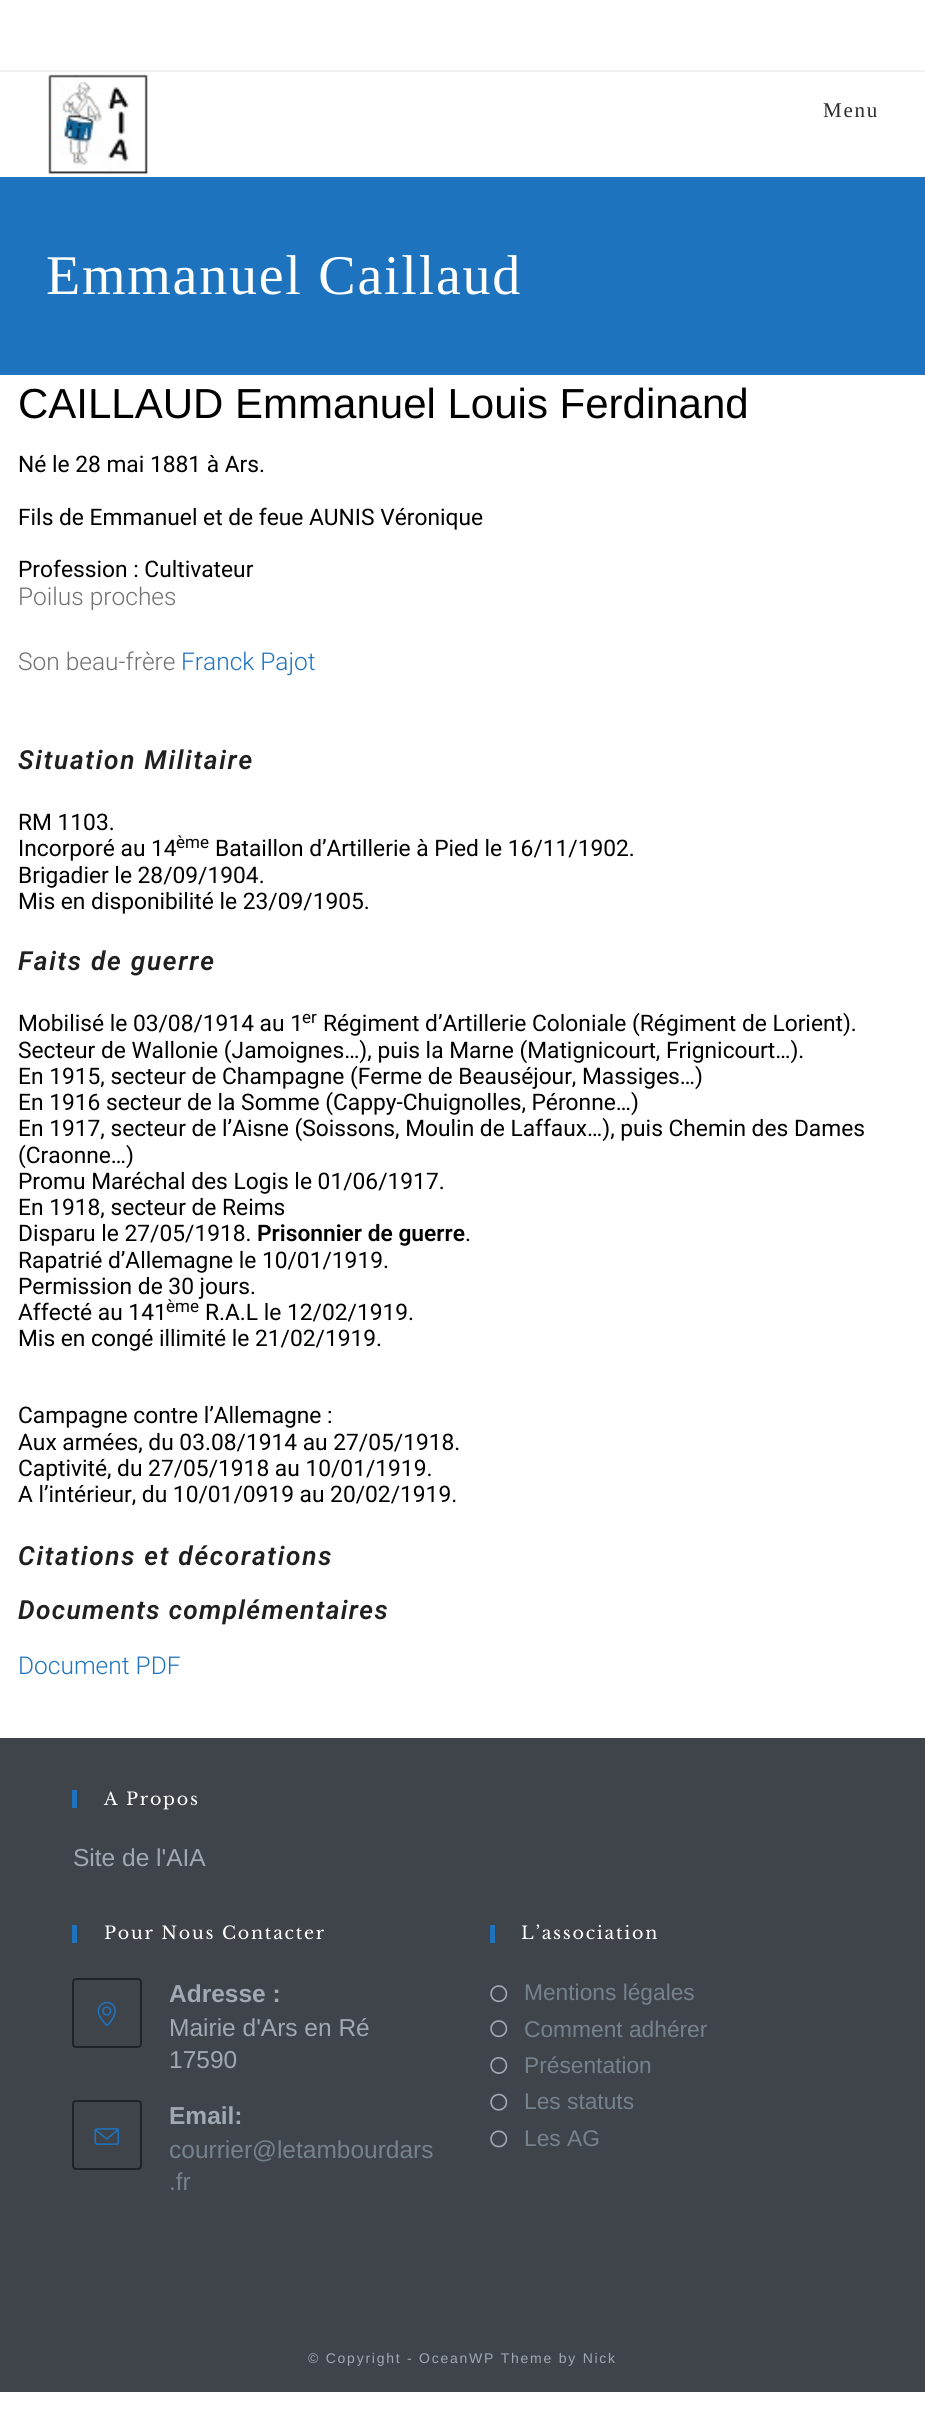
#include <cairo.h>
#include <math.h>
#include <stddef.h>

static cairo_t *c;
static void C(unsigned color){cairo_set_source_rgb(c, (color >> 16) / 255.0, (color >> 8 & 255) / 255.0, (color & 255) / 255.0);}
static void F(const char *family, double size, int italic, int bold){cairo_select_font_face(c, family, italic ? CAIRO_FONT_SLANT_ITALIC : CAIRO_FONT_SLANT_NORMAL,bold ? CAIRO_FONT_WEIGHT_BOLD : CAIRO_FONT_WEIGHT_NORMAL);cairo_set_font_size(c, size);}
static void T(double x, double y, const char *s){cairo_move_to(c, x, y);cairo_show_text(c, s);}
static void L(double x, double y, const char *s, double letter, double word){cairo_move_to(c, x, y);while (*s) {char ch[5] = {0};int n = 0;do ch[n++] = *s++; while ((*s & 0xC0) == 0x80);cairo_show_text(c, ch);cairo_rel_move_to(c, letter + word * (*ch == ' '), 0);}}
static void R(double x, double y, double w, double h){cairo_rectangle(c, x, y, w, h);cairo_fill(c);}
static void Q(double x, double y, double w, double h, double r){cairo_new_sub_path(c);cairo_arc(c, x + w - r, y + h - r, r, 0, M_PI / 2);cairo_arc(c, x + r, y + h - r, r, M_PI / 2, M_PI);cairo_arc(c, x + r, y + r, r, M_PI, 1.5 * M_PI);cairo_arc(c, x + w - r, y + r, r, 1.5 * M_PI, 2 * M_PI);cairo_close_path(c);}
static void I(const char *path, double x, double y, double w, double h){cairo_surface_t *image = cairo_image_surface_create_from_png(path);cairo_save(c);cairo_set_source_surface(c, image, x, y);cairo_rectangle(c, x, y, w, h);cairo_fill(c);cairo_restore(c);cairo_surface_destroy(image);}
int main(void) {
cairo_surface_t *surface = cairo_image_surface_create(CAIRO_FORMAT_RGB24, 925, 2416);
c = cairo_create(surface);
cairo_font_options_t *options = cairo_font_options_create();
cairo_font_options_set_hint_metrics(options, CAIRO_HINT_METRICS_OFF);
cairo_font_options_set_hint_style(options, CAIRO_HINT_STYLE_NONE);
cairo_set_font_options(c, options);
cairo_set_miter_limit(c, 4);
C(0xffffff);
cairo_paint(c);
C(0xf1f1f1);
R(0,70,925,2);
I("1.png",45,74,105,102);
F("Liberation Serif",21,0,0);
C(0x2c2c2c);
L(823,117,"Menu",1.75,0);
C(0x1e73be);
R(0,177,925,198);
F("Liberation Serif",56,0,0);
C(0xffffff);
L(46,294,"Emmanuel Caillaud",1.75,0);
F("Liberation Sans",42,0,0);
C(0x000000);
T(18,418,"CAILLAUD Emmanuel Louis Ferdinand");
F("Roboto",22.75,0,0);
T(18,472,"Né le 28 mai 1881 à Ars.");
T(18,525,"Fils de Emmanuel et de feue AUNIS Véronique");
T(18,577,"Profession : Cultivateur");
F("Roboto Light",24.5,0,0);
C(0x707070);
T(18,605,"Poilus proches");
T(18,670,"Son beau-frère");
C(0x1e73be);
T(181,670,"Franck Pajot");
F("Roboto SemiBold",26.25,1,0);
C(0x202020);
L(18,769,"Situation Militaire",1.75,0);
F("Roboto",22.75,0,0);
C(0x000000);
T(18,830,"RM 1103.");
T(18,856,"Incorporé au 14");
F("Roboto",17,0,0);
T(176,848,"ème");
F("Roboto",22.75,0,0);
T(215,856,"Bataillon d’Artillerie à Pied le 16/11/1902.");
T(18,883,"Brigadier le 28/09/1904.");
T(18,909,"Mis en disponibilité le 23/09/1905.");
F("Roboto SemiBold",26.25,1,0);
C(0x202020);
L(18,970,"Faits de guerre",1.75,0);
F("Roboto",22.75,0,0);
C(0x000000);
T(18,1031,"Mobilisé le 03/08/1914 au 1");
F("Roboto",17,0,0);
T(302,1023,"er");
F("Roboto",22.75,0,0);
T(323,1031,"Régiment d’Artillerie Coloniale (Régiment de Lorient).");
T(18,1058,"Secteur de Wallonie (Jamoignes…), puis la Marne (Matignicourt, Frignicourt…).");
T(18,1084,"En 1915, secteur de Champagne (Ferme de Beauséjour, Massiges…)");
T(18,1110,"En 1916 secteur de la Somme (Cappy-Chuignolles, Péronne…)");
T(18,1136,"En 1917, secteur de l’Aisne (Soissons, Moulin de Laffaux…), puis Chemin des Dames");
T(18,1163,"(Craonne…)");
T(18,1189,"Promu Maréchal des Logis le 01/06/1917.");
T(18,1215,"En 1918, secteur de Reims");
T(18,1241,"Disparu le 27/05/1918.");
F("Roboto SemiBold",22.75,0,0);
T(257,1241,"Prisonnier de guerre");
F("Roboto",22.75,0,0);
T(465,1241,".");
T(18,1268,"Rapatrié d’Allemagne le 10/01/1919.");
T(18,1294,"Permission de 30 jours.");
T(18,1320,"Affecté au 141");
F("Roboto",17,0,0);
T(166,1312,"ème");
F("Roboto",22.75,0,0);
T(205,1320,"R.A.L le 12/02/1919.");
T(18,1346,"Mis en congé illimité le 21/02/1919.");
T(18,1423,"Campagne contre l’Allemagne :");
T(18,1450,"Aux armées, du 03.08/1914 au 27/05/1918.");
T(18,1476,"Captivité, du 27/05/1918 au 10/01/1919.");
T(18,1502,"A l’intérieur, du 10/01/0919 au 20/02/1919.");
F("Roboto SemiBold",26.25,1,0);
C(0x202020);
L(18,1565,"Citations et décorations",1.75,0);
L(18,1619,"Documents complémentaires",1.4,0);
F("Roboto Light",24.5,0,0);
C(0x1e73be);
T(18,1674,"Document PDF");
C(0x3f444a);
R(0,1738,925,654);
C(0x1e73be);
R(72,1790,5,18);
F("Libre Baskerville",17.5,0,0);
C(0xffffff);
L(104,1805,"A Propos",1.75,0);
F("Liberation Sans",24.5,0,0);
C(0xa0a8b1);
T(73,1866,"Site de l'AIA");
C(0x1e73be);
R(72,1925,5,18);
F("Libre Baskerville",17.5,0,0);
C(0xffffff);
L(104,1939,"Pour Nous Contacter",1.75,0);
Q(73,1979,68,68,3);
C(0x202326);
cairo_stroke(c);
I("2.png",97,2001,19,26);
F("Liberation Sans",24.5,0,1);
C(0xa0a8b1);
T(169,2002,"Adresse :");
F("Liberation Sans",24.5,0,0);
T(169,2036,"Mairie d'Ars en Ré");
T(169,2068,"17590");
Q(73,2101,68,68,3);
C(0x202326);
cairo_stroke(c);
I("3.png",94,2128,25,17);
F("Liberation Sans",24.5,0,1);
C(0xa0a8b1);
T(169,2124,"Email:");
F("Liberation Sans",24.5,0,0);
C(0x75828c);
T(169,2158,"courrier@letambourdars");
T(169,2190,".fr");
C(0x1e73be);
R(490,1925,5,18);
F("Libre Baskerville",17.5,0,0);
C(0xffffff);
L(521,1939,"L’association",1.75,0);
I("4.png",490,1985,18,18);
F("Liberation Sans",22.75,0,0);
C(0x75828c);
T(524,2000,"Mentions légales");
I("4.png",490,2020,18,18);
T(524,2037,"Comment adhérer");
I("5.png",490,2057,18,17);
T(524,2073,"Présentation");
I("6.png",490,2093,18,18);
T(524,2109,"Les statuts");
I("7.png",490,2130,18,18);
T(524,2146,"Les AG");
F("Liberation Sans",14,0,0);
C(0xa0a8b1);
L(308,2363,"© Copyright - OceanWP Theme by Nick",1.75,0);
cairo_surface_write_to_png(surface, "o.png");
cairo_font_options_destroy(options);
cairo_destroy(c);
cairo_surface_destroy(surface);
return 0;
}
